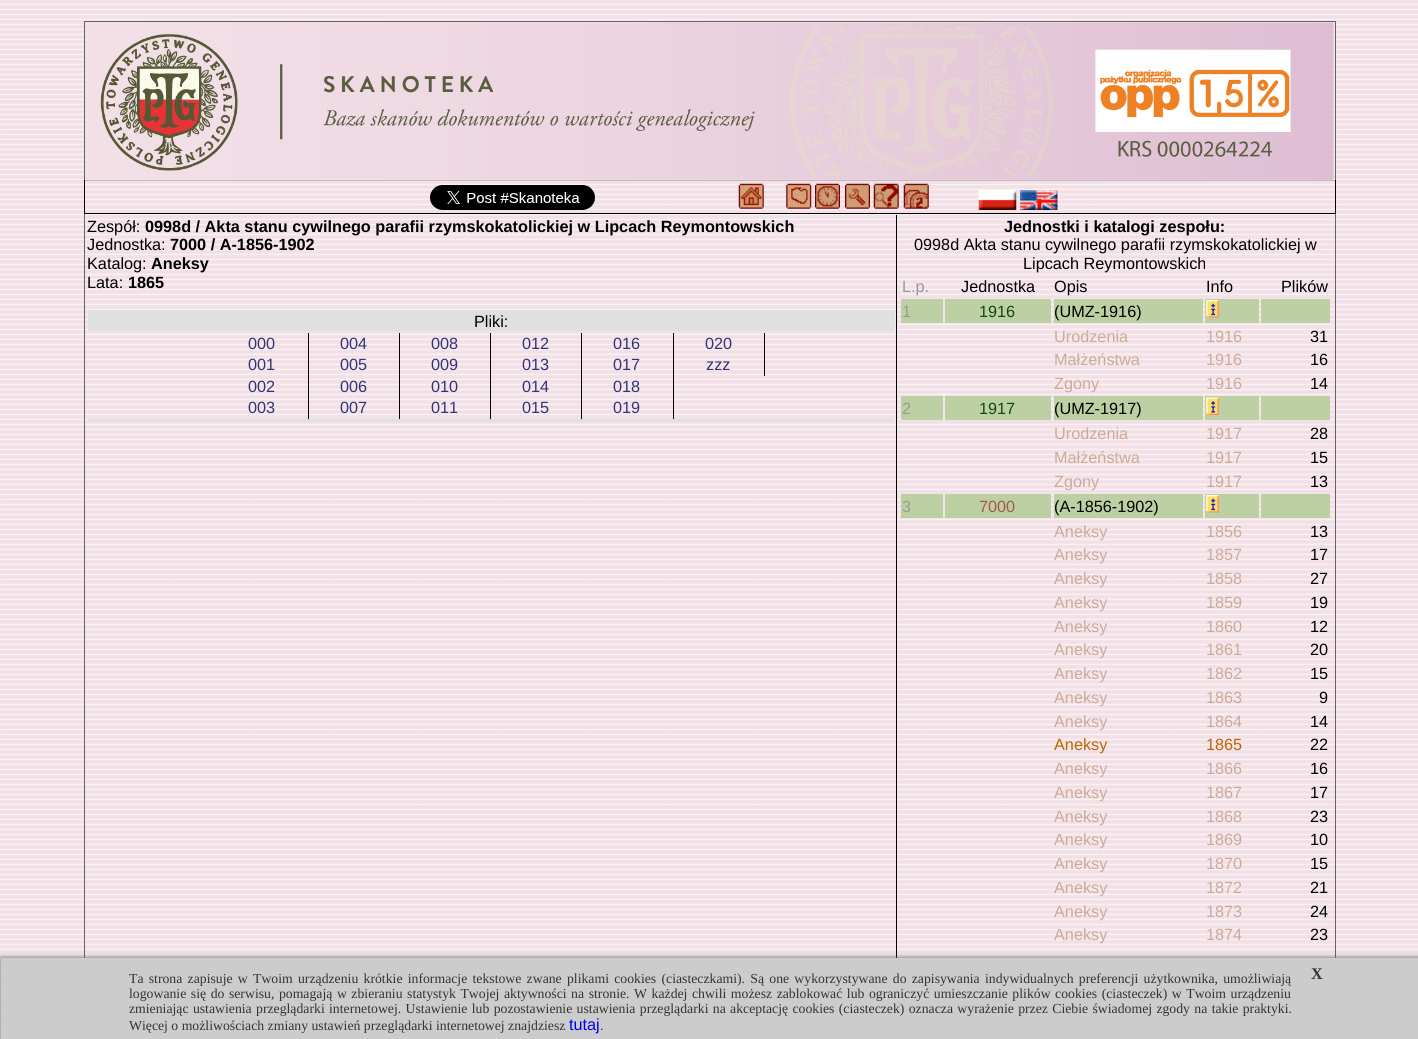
#include <cairo.h>
#include <math.h>
#include <stddef.h>

static cairo_t *c;
static void C(unsigned color){cairo_set_source_rgb(c, (color >> 16) / 255.0, (color >> 8 & 255) / 255.0, (color & 255) / 255.0);}
static void F(const char *family, double size, int italic, int bold){cairo_select_font_face(c, family, italic ? CAIRO_FONT_SLANT_ITALIC : CAIRO_FONT_SLANT_NORMAL,bold ? CAIRO_FONT_WEIGHT_BOLD : CAIRO_FONT_WEIGHT_NORMAL);cairo_set_font_size(c, size);}
static void T(double x, double y, const char *s){cairo_move_to(c, x, y);cairo_show_text(c, s);}
static void L(double x, double y, const char *s, double letter, double word){cairo_move_to(c, x, y);while (*s) {char ch[5] = {0};int n = 0;do ch[n++] = *s++; while ((*s & 0xC0) == 0x80);cairo_show_text(c, ch);cairo_rel_move_to(c, letter + word * (*ch == ' '), 0);}}
static void R(double x, double y, double w, double h){cairo_rectangle(c, x, y, w, h);cairo_fill(c);}
static void Q(double x, double y, double w, double h, double r){cairo_new_sub_path(c);cairo_arc(c, x + w - r, y + h - r, r, 0, M_PI / 2);cairo_arc(c, x + r, y + h - r, r, M_PI / 2, M_PI);cairo_arc(c, x + r, y + r, r, M_PI, 1.5 * M_PI);cairo_arc(c, x + w - r, y + r, r, 1.5 * M_PI, 2 * M_PI);cairo_close_path(c);}
static void S(double x, double y, double w, double h, double r, double blur, double alpha){cairo_push_group_with_content(c, CAIRO_CONTENT_ALPHA);cairo_set_operator(c, CAIRO_OPERATOR_SOURCE);for (int i = 15; i >= -15 && fmin(w, h) + blur * i / 3 > 0; i -= 2) {double e = blur * i / 6;cairo_set_source_rgba(c, 0, 0, 0, alpha * erfc((i - 1) / 8.5) / 2);Q(x - e, y - e, w + 2 * e, h + 2 * e, fmax(0, fmin(r + e + blur * .6, fmin(w, h) / 2 + e)));cairo_fill(c);}cairo_pattern_t *soft = cairo_pop_group(c);cairo_mask(c, soft);cairo_pattern_destroy(soft);}
static void I(const char *path, double x, double y, double w, double h){cairo_surface_t *image = cairo_image_surface_create_from_png(path);cairo_save(c);cairo_set_source_surface(c, image, x, y);cairo_rectangle(c, x, y, w, h);cairo_fill(c);cairo_restore(c);cairo_surface_destroy(image);}
int main(void) {
cairo_surface_t *surface = cairo_image_surface_create(CAIRO_FORMAT_RGB24, 1418, 1039);
c = cairo_create(surface);
cairo_font_options_t *options = cairo_font_options_create();
cairo_font_options_set_hint_metrics(options, CAIRO_HINT_METRICS_OFF);
cairo_font_options_set_hint_style(options, CAIRO_HINT_STYLE_NONE);
cairo_set_font_options(c, options);
cairo_set_miter_limit(c, 4);
C(0xffffff);
cairo_paint(c);
I("1.png",0,0,1418,1039);
C(0x646464);
R(84,21,1252,1);
R(1335,21,1,937);
R(84,21,1,937);
I("2.png",85,22,1249,158);
C(0xbebebe);
R(84,180,1252,1);
C(0x000000);
R(1335,180,1,34);
R(84,213,1252,1);
R(84,180,1,34);
I("3.png",430,185,165,25);
I("4.png",738,183,26,26);
I("5.png",786,183,26,26);
I("6.png",815,183,25,26);
I("7.png",845,183,25,26);
I("8.png",873,183,26,26);
I("9.png",903,183,26,26);
I("10.png",978,190,39,20);
I("11.png",1020,190,38,20);
F("Liberation Sans",16.25,0,0);
T(87,232,"Zespół:");
F("Liberation Sans",16.25,0,1);
T(145,232,"0998d / Akta stanu cywilnego parafii rzymskokatolickiej w Lipcach Reymontowskich");
F("Liberation Sans",16.25,0,0);
T(87,250,"Jednostka:");
F("Liberation Sans",16.25,0,1);
T(170,250,"7000 / A-1856-1902");
F("Liberation Sans",16.25,0,0);
T(87,269,"Katalog:");
F("Liberation Sans",16.25,0,1);
T(151,269,"Aneksy");
F("Liberation Sans",16.25,0,0);
T(87,288,"Lata:");
F("Liberation Sans",16.25,0,1);
T(128,288,"1865");
C(0xe0e0e0);
R(88,310,807,21);
F("Liberation Sans",16.25,0,0);
C(0x000000);
T(474,327,"Pliki:");
C(0x333377);
T(248,349,"000");
T(340,349,"004");
T(431,349,"008");
T(522,349,"012");
T(613,349,"016");
T(705,349,"020");
T(248,370,"001");
T(340,370,"005");
T(431,370,"009");
T(522,370,"013");
T(613,370,"017");
C(0x000000);
R(764,333,1,43);
C(0x333377);
T(706,370,"zzz");
T(248,392,"002");
T(340,392,"006");
T(431,392,"010");
T(522,392,"014");
T(613,392,"018");
C(0x000000);
R(308,333,1,86);
C(0x333377);
T(248,413,"003");
C(0x000000);
R(399,333,1,86);
C(0x333377);
T(340,413,"007");
C(0x000000);
R(490,333,1,86);
C(0x333377);
T(431,413,"011");
C(0x000000);
R(581,333,1,86);
C(0x333377);
T(522,413,"015");
C(0x000000);
R(673,333,1,86);
C(0x333377);
T(613,413,"019");
C(0xe0e0e0);
R(88,419,807,3);
C(0x000000);
R(896,215,1,743);
F("Liberation Sans",16.25,0,1);
T(1004,232,"Jednostki i katalogi zespołu:");
F("Liberation Sans",16.25,0,0);
T(914,250,"0998d Akta stanu cywilnego parafii rzymskokatolickiej w");
T(1023,269,"Lipcach Reymontowskich");
C(0x999999);
T(902,292,"L.p.");
C(0x000000);
T(961,292,"Jednostka");
T(1054,292,"Opis");
T(1206,292,"Info");
T(1281,292,"Plików");
C(0xbdd0a3);
R(901,299,42,24);
C(0x999999);
T(902,317,"1");
C(0xbdd0a3);
R(945,299,106,24);
C(0x144614);
T(979,317,"1916");
C(0xbdd0a3);
R(1054,299,149,24);
C(0x000000);
T(1054,317,"(UMZ-1916)");
C(0xbdd0a3);
R(1205,299,54,24);
I("12.png",1206,300,13,18);
R(1261,299,69,24);
C(0xccaa99);
T(1054,342,"Urodzenia");
T(1206,342,"1916");
C(0x000000);
T(1310,342,"31");
C(0xccaa99);
T(1054,365,"Małżeństwa");
T(1206,365,"1916");
C(0x000000);
T(1310,365,"16");
C(0xccaa99);
T(1054,389,"Zgony");
T(1206,389,"1916");
C(0x000000);
T(1310,389,"14");
C(0xbdd0a3);
R(901,396,42,24);
C(0x999999);
T(902,414,"2");
C(0xbdd0a3);
R(945,396,106,24);
C(0x144614);
T(979,414,"1917");
C(0xbdd0a3);
R(1054,396,149,24);
C(0x000000);
T(1054,414,"(UMZ-1917)");
C(0xbdd0a3);
R(1205,396,54,24);
I("13.png",1206,397,13,18);
R(1261,396,69,24);
C(0xccaa99);
T(1054,439,"Urodzenia");
T(1206,439,"1917");
C(0x000000);
T(1310,439,"28");
C(0xccaa99);
T(1054,463,"Małżeństwa");
T(1206,463,"1917");
C(0x000000);
T(1310,463,"15");
C(0xccaa99);
T(1054,487,"Zgony");
T(1206,487,"1917");
C(0x000000);
T(1310,487,"13");
C(0xbdd0a3);
R(901,494,42,24);
C(0x999999);
T(902,512,"3");
C(0xbdd0a3);
R(945,494,106,24);
C(0xa45654);
T(979,512,"7000");
C(0xbdd0a3);
R(1054,494,149,24);
C(0x000000);
T(1054,512,"(A-1856-1902)");
C(0xbdd0a3);
R(1205,494,54,24);
I("12.png",1206,495,13,18);
R(1261,494,69,24);
C(0xccaa99);
T(1054,537,"Aneksy");
T(1206,537,"1856");
C(0x000000);
T(1310,537,"13");
C(0xccaa99);
T(1054,560,"Aneksy");
T(1206,560,"1857");
C(0x000000);
T(1310,560,"17");
C(0xccaa99);
T(1054,584,"Aneksy");
T(1206,584,"1858");
C(0x000000);
T(1310,584,"27");
C(0xccaa99);
T(1054,608,"Aneksy");
T(1206,608,"1859");
C(0x000000);
T(1310,608,"19");
C(0xccaa99);
T(1054,632,"Aneksy");
T(1206,632,"1860");
C(0x000000);
T(1310,632,"12");
C(0xccaa99);
T(1054,655,"Aneksy");
T(1206,655,"1861");
C(0x000000);
T(1310,655,"20");
C(0xccaa99);
T(1054,679,"Aneksy");
T(1206,679,"1862");
C(0x000000);
T(1310,679,"15");
C(0xccaa99);
T(1054,703,"Aneksy");
T(1206,703,"1863");
C(0x000000);
T(1319,703,"9");
C(0xccaa99);
T(1054,727,"Aneksy");
T(1206,727,"1864");
C(0x000000);
T(1310,727,"14");
C(0xbb6600);
T(1054,750,"Aneksy");
T(1206,750,"1865");
C(0x000000);
T(1310,750,"22");
C(0xccaa99);
T(1054,774,"Aneksy");
T(1206,774,"1866");
C(0x000000);
T(1310,774,"16");
C(0xccaa99);
T(1054,798,"Aneksy");
T(1206,798,"1867");
C(0x000000);
T(1310,798,"17");
C(0xccaa99);
T(1054,822,"Aneksy");
T(1206,822,"1868");
C(0x000000);
T(1310,822,"23");
C(0xccaa99);
T(1054,845,"Aneksy");
T(1206,845,"1869");
C(0x000000);
T(1310,845,"10");
C(0xccaa99);
T(1054,869,"Aneksy");
T(1206,869,"1870");
C(0x000000);
T(1310,869,"15");
C(0xccaa99);
T(1054,893,"Aneksy");
T(1206,893,"1872");
C(0x000000);
T(1310,893,"21");
C(0xccaa99);
T(1054,917,"Aneksy");
T(1206,917,"1873");
C(0x000000);
T(1310,917,"24");
C(0xccaa99);
T(1054,940,"Aneksy");
T(1206,940,"1874");
C(0x000000);
T(1310,940,"23");
C(0x666666);
S(1,958,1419,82,0,3,1);
C(0xcccccc);
R(1,958,1417,81);
F("Liberation Serif",13.75,0,0);
C(0x333333);
L(129,983,"Ta strona zapisuje w Twoim urządzeniu krótkie informacje tekstowe zwane plikami cookies (ciasteczkami). Są one wykorzystywane do zapisywania indywidualnych preferencji użytkownika, umożliwiają",0,1.8);
F("Liberation Serif",16.25,0,1);
T(1311,979,"X");
F("Liberation Serif",13.75,0,0);
L(129,998,"logowanie się do serwisu, pomagają w zbieraniu statystyk Twojej aktywności na stronie. W każdej chwili możesz zablokować lub ograniczyć umieszczanie plików cookies (ciasteczek) w Twoim urządzeniu",0,1.1);
L(129,1013,"zmieniając ustawienia przeglądarki internetowej. Ustawienie lub pozostawienie ustawienia przeglądarki na akceptację cookies (ciasteczek) oznacza wyrażenie przez Ciebie świadomej zgody na takie praktyki.",0,.9);
T(129,1030,"Więcej o możliwościach zmiany ustawień przeglądarki internetowej znajdziesz");
F("Liberation Sans",16.25,0,0);
C(0x0000ee);
T(569,1030,"tutaj");
F("Liberation Serif",13.75,0,0);
C(0x333333);
T(600,1030,".");
cairo_surface_write_to_png(surface, "o.png");
cairo_font_options_destroy(options);
cairo_destroy(c);
cairo_surface_destroy(surface);
return 0;
}
